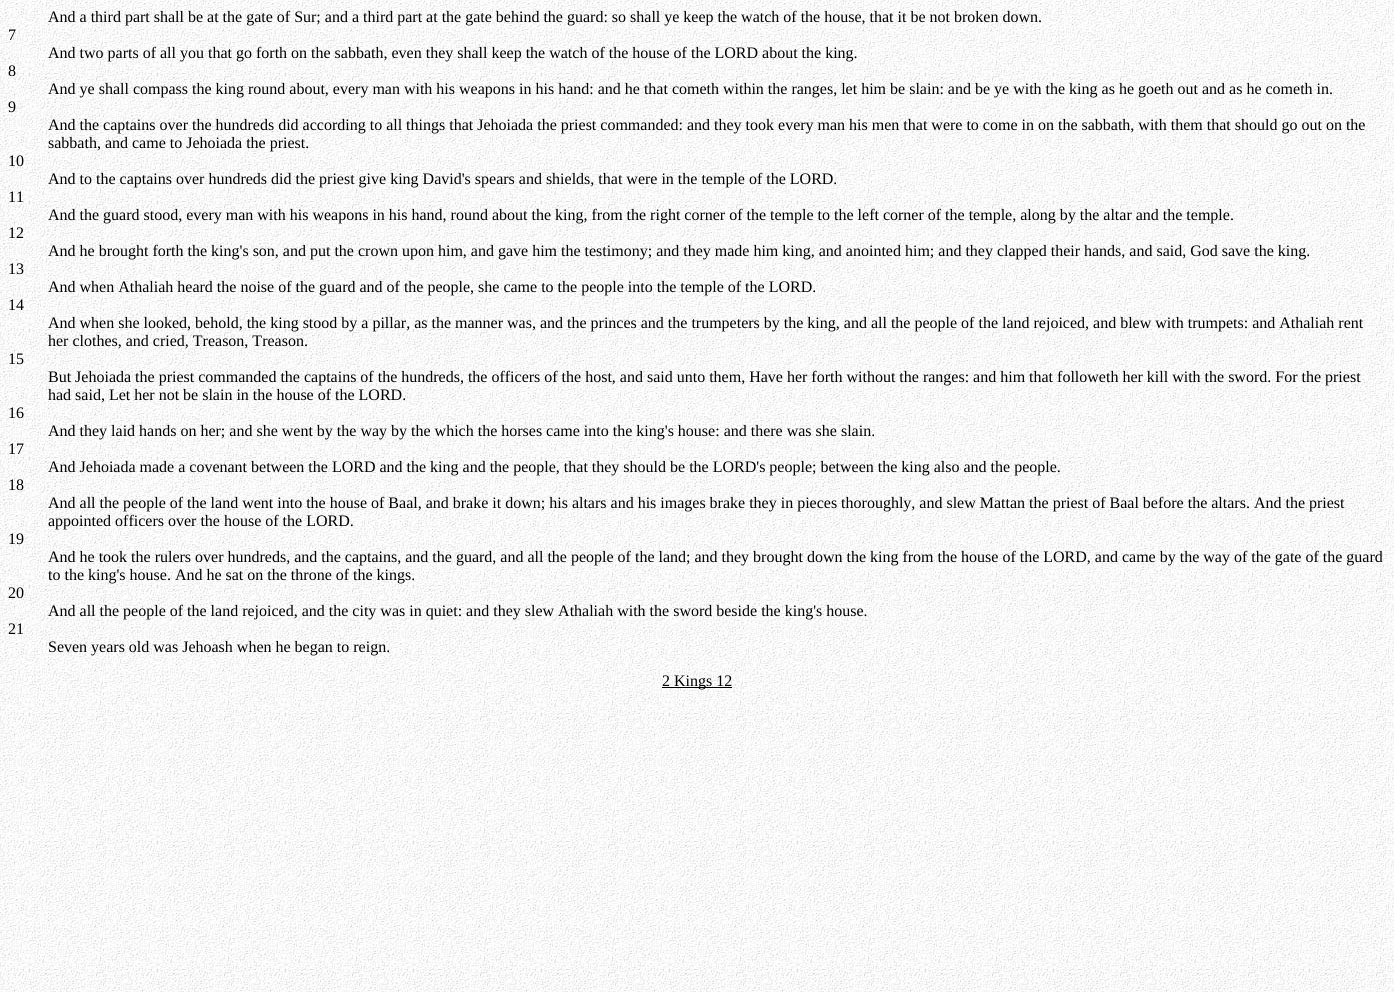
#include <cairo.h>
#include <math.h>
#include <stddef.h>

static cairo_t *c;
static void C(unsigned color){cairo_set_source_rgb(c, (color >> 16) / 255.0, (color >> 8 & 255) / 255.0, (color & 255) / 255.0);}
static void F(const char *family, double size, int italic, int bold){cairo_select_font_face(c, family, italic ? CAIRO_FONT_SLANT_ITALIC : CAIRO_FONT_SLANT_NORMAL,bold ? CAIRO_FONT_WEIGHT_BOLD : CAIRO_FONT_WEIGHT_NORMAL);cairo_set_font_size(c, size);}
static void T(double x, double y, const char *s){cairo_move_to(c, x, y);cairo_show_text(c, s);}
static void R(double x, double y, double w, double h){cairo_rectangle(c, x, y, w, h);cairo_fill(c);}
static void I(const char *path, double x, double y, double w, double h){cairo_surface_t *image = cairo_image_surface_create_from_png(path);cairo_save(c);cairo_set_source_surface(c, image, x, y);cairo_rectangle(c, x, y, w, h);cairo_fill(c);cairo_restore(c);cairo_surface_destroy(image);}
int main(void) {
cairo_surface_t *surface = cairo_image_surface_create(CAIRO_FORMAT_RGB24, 1394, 992);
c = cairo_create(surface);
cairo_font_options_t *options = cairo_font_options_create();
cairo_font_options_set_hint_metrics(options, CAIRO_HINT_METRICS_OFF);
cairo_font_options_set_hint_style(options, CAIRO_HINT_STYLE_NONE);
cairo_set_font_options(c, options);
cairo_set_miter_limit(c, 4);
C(0xffffff);
cairo_paint(c);
I("1.png",0,0,1394,992);
F("Liberation Serif",16,0,0);
C(0x000000);
T(48,22,"And a third part shall be at the gate of Sur; and a third part at the gate behind the guard: so shall ye keep the watch of the house, that it be not broken down.");
T(8,40,"7");
T(48,58,"And two parts of all you that go forth on the sabbath, even they shall keep the watch of the house of the LORD about the king.");
T(8,76,"8");
T(48,94,"And ye shall compass the king round about, every man with his weapons in his hand: and he that cometh within the ranges, let him be slain: and be ye with the king as he goeth out and as he cometh in.");
T(8,112,"9");
T(48,130,"And the captains over the hundreds did according to all things that Jehoiada the priest commanded: and they took every man his men that were to come in on the sabbath, with them that should go out on the");
T(48,148,"sabbath, and came to Jehoiada the priest.");
T(8,166,"10");
T(48,184,"And to the captains over hundreds did the priest give king David's spears and shields, that were in the temple of the LORD.");
T(8,202,"11");
T(48,220,"And the guard stood, every man with his weapons in his hand, round about the king, from the right corner of the temple to the left corner of the temple, along by the altar and the temple.");
T(8,238,"12");
T(48,256,"And he brought forth the king's son, and put the crown upon him, and gave him the testimony; and they made him king, and anointed him; and they clapped their hands, and said, God save the king.");
T(8,274,"13");
T(48,292,"And when Athaliah heard the noise of the guard and of the people, she came to the people into the temple of the LORD.");
T(8,310,"14");
T(48,328,"And when she looked, behold, the king stood by a pillar, as the manner was, and the princes and the trumpeters by the king, and all the people of the land rejoiced, and blew with trumpets: and Athaliah rent");
T(48,346,"her clothes, and cried, Treason, Treason.");
T(8,364,"15");
T(48,382,"But Jehoiada the priest commanded the captains of the hundreds, the officers of the host, and said unto them, Have her forth without the ranges: and him that followeth her kill with the sword. For the priest");
T(48,400,"had said, Let her not be slain in the house of the LORD.");
T(8,418,"16");
T(48,436,"And they laid hands on her; and she went by the way by the which the horses came into the king's house: and there was she slain.");
T(8,454,"17");
T(48,472,"And Jehoiada made a covenant between the LORD and the king and the people, that they should be the LORD's people; between the king also and the people.");
T(8,490,"18");
T(48,508,"And all the people of the land went into the house of Baal, and brake it down; his altars and his images brake they in pieces thoroughly, and slew Mattan the priest of Baal before the altars. And the priest");
T(48,526,"appointed officers over the house of the LORD.");
T(8,544,"19");
T(48,562,"And he took the rulers over hundreds, and the captains, and the guard, and all the people of the land; and they brought down the king from the house of the LORD, and came by the way of the gate of the guard");
T(48,580,"to the king's house. And he sat on the throne of the kings.");
T(8,598,"20");
T(48,616,"And all the people of the land rejoiced, and the city was in quiet: and they slew Athaliah with the sword beside the king's house.");
T(8,634,"21");
T(48,652,"Seven years old was Jehoash when he began to reign.");
R(662,687,70,1);
T(662,686,"2 Kings 12");
cairo_surface_write_to_png(surface, "o.png");
cairo_font_options_destroy(options);
cairo_destroy(c);
cairo_surface_destroy(surface);
return 0;
}
